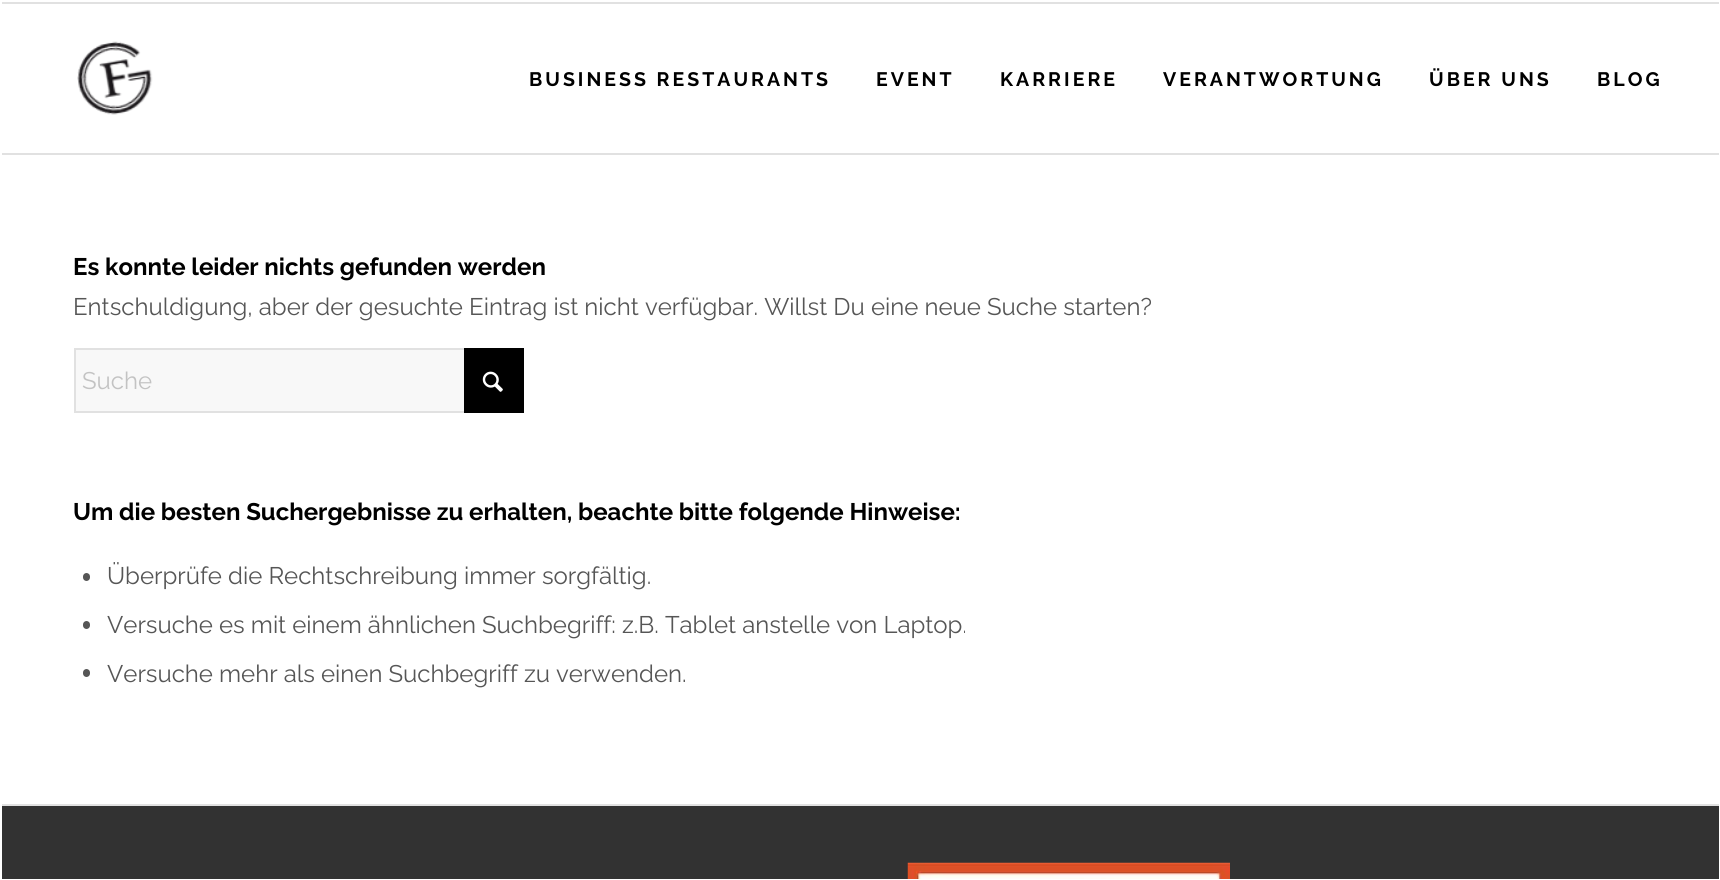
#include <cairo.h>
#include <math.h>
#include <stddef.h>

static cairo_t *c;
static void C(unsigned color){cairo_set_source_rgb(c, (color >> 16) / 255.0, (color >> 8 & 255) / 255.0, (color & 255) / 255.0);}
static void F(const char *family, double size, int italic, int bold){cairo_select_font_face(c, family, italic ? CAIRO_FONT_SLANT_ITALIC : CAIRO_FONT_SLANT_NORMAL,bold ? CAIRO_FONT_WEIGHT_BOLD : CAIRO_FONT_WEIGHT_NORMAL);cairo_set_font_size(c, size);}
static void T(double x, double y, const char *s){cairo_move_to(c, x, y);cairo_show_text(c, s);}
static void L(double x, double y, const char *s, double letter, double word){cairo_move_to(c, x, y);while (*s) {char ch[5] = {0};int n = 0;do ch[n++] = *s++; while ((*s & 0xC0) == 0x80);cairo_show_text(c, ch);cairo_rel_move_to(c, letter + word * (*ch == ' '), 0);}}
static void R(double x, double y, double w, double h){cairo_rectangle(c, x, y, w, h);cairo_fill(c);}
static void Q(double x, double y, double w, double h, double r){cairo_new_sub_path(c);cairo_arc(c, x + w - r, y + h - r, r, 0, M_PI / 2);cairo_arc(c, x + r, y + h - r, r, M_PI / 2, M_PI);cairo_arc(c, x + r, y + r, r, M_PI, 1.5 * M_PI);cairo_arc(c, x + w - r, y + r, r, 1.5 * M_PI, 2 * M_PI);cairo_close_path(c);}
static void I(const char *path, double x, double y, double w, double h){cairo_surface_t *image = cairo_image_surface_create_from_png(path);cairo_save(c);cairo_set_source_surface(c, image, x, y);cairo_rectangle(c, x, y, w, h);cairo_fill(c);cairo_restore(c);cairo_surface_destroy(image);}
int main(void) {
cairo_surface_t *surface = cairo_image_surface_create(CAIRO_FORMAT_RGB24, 1720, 880);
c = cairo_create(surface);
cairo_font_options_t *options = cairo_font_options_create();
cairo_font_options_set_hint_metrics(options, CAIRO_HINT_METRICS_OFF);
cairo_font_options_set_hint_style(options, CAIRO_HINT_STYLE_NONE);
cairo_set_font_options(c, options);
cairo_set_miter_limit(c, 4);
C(0xffffff);
cairo_paint(c);
C(0xe1e1e1);
R(2,2,1717,2);
R(2,153,1717,2);
I("1.png",77,41,76,74);
F("Raleway",19.5,0,1);
C(0x000000);
L(529,86,"BUSINESS RESTAURANTS",3,0);
L(876,86,"EVENT",3,0);
L(1000,86,"KARRIERE",3,0);
L(1163,86,"VERANTWORTUNG",3,0);
L(1429,86,"ÜBER UNS",3,0);
L(1597,86,"BLOG",3,0);
F("Raleway",24,0,1);
T(73,275,"Es konnte leider nichts gefunden werden");
F("Raleway",24,0,0);
C(0x565656);
T(73,315,"Entschuldigung, aber der gesuchte Eintrag ist nicht verfügbar. Willst Du eine neue Suche starten?");
C(0xf8f8f8);
R(76,350,388,61);
cairo_rectangle(c,75,349,448,63);
C(0xe1e1e1);
cairo_stroke(c);
C(0xc3c3c3);
T(82,389,"Suche");
C(0x000000);
R(464,348,60,65);
I("2.png",482,371,21,21);
F("Raleway",24,0,1);
T(73,520,"Um die besten Suchergebnisse zu erhalten, beachte bitte folgende Hinweise:");
C(0x565656);
Q(83,573,7,8,3.5);
cairo_fill(c);
F("Raleway",24,0,0);
T(107,584,"Überprüfe die Rechtschreibung immer sorgfältig.");
Q(83,621,7,8,3.5);
cairo_fill(c);
T(107,633,"Versuche es mit einem ähnlichen Suchbegriff: z.B. Tablet anstelle von Laptop.");
Q(83,669,7,8,3.5);
cairo_fill(c);
T(107,682,"Versuche mehr als einen Suchbegriff zu verwenden.");
C(0x323232);
R(2,806,1717,73);
C(0xe1e1e1);
R(2,804,1717,2);
I("3.png",907,862,323,17);
cairo_surface_write_to_png(surface, "o.png");
cairo_font_options_destroy(options);
cairo_destroy(c);
cairo_surface_destroy(surface);
return 0;
}
